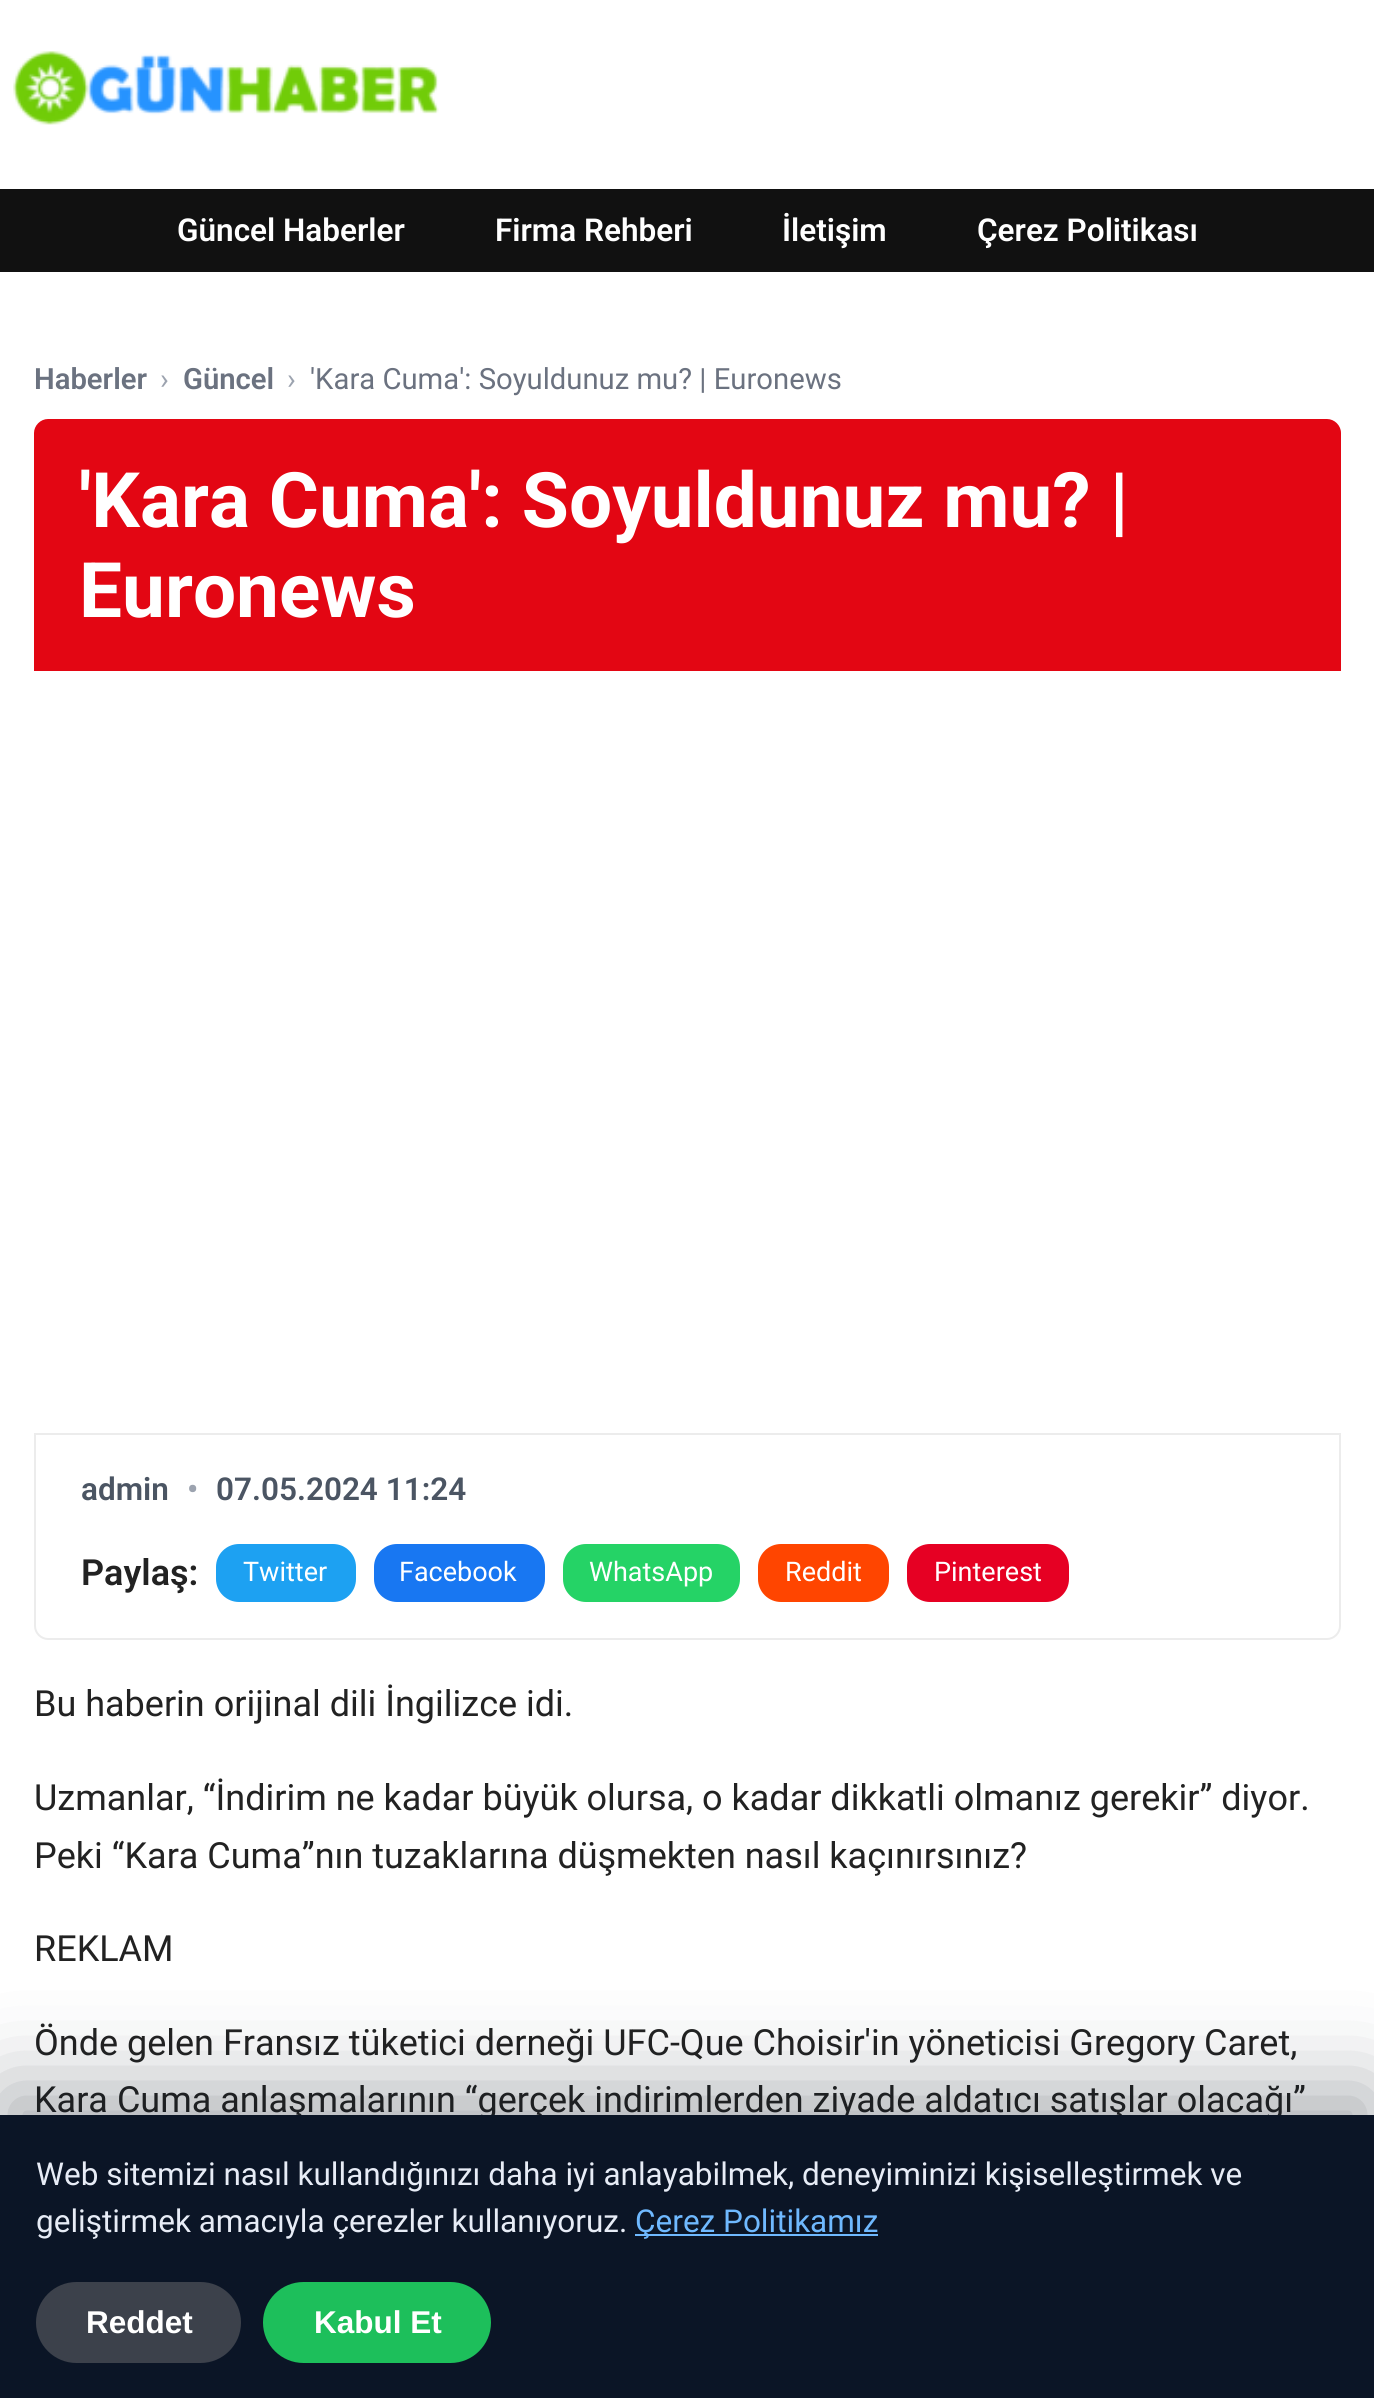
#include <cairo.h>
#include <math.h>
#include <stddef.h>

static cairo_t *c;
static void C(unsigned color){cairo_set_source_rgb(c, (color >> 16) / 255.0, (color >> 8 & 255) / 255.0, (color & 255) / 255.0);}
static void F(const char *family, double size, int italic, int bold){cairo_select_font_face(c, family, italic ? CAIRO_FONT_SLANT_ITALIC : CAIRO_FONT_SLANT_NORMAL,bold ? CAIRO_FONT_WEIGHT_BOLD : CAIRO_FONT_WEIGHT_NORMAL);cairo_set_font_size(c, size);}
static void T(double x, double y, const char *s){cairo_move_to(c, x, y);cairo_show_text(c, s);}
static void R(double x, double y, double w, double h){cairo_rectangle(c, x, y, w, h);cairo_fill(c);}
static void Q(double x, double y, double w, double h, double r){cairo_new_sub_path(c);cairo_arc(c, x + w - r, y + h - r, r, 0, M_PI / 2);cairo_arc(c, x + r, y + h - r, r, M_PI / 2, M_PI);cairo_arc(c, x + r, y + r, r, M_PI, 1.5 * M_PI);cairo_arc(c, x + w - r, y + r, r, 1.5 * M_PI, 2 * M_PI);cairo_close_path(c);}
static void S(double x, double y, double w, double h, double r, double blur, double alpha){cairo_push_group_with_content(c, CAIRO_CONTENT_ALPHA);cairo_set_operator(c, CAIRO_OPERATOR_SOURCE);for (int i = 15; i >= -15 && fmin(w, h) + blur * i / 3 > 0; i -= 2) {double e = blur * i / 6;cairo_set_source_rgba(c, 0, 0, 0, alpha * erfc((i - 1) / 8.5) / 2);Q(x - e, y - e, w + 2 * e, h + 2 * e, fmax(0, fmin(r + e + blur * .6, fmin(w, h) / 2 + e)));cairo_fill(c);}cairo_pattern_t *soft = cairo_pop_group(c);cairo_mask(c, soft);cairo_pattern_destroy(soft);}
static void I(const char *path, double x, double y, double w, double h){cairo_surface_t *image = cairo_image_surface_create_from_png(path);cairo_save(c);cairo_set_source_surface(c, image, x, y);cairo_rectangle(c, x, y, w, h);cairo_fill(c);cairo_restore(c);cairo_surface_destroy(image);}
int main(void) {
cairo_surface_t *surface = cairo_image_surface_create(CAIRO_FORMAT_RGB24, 1374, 2398);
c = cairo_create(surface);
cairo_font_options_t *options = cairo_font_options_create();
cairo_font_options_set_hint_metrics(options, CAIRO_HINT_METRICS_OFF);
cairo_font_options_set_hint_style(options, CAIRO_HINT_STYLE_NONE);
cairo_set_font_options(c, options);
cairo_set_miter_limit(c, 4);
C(0xffffff);
cairo_paint(c);
I("1.png",13,51,426,74);
C(0x111111);
R(0,189,1374,83);
F("Roboto SemiBold",31.5,0,0);
C(0xffffff);
T(177,241,"Güncel Haberler");
T(495,241,"Firma Rehberi");
T(782,241,"İletişim");
T(977,241,"Çerez Politikası");
F("Roboto SemiBold",29.25,0,0);
C(0x6b7280);
T(34,389,"Haberler");
F("Roboto",29.25,0,0);
C(0x9ca3af);
T(160,389,"›");
F("Roboto SemiBold",29.25,0,0);
C(0x6b7280);
T(183,389,"Güncel");
F("Roboto",29.25,0,0);
C(0x9ca3af);
T(287,389,"›");
C(0x6b7280);
T(310,389,"'Kara Cuma': Soyuldunuz mu? | Euronews");
C(0xe30613);
cairo_new_path(c);
cairo_move_to(c,48,419);
cairo_line_to(c,1327,419);
cairo_curve_to(c,1334.5,419,1341,425.5,1341,433);
cairo_line_to(c,1341,671);
cairo_line_to(c,34,671);
cairo_line_to(c,34,433);
cairo_curve_to(c,34,425.5,40.5,419,48,419);
cairo_close_path(c);
cairo_fill(c);
F("Roboto",76.5,0,1);
C(0xffffff);
T(79,527,"'Kara Cuma': Soyuldunuz mu? |");
T(79,617,"Euronews");
cairo_new_path(c);
cairo_move_to(c,35,1434);
cairo_line_to(c,1340,1434);
cairo_line_to(c,1340,1626);
cairo_curve_to(c,1340,1633,1334,1639,1327,1639);
cairo_line_to(c,48,1639);
cairo_curve_to(c,41,1639,35,1633,35,1626);
cairo_close_path(c);
C(0xececec);
cairo_stroke(c);
F("Roboto SemiBold",31.5,0,0);
C(0x4b5563);
T(81,1500,"admin");
C(0x9ca3af);
T(187,1500,"•");
C(0x4b5563);
T(216,1500,"07.05.2024 11:24");
F("Roboto SemiBold",36,0,0);
C(0x222222);
T(81,1585,"Paylaş:");
C(0x1da1f2);
Q(216,1544,140,58,23);
cairo_fill(c);
F("Roboto",27,0,0);
C(0xffffff);
T(243,1581,"Twitter");
C(0x1877f2);
Q(374,1544,171,58,23);
cairo_fill(c);
C(0xffffff);
T(399,1581,"Facebook");
C(0x25d366);
Q(563,1544,177,58,23);
cairo_fill(c);
C(0xffffff);
T(589,1581,"WhatsApp");
C(0xff4500);
Q(758,1544,131,58,23);
cairo_fill(c);
C(0xffffff);
T(785,1581,"Reddit");
C(0xe60023);
Q(907,1544,162,58,23);
cairo_fill(c);
C(0xffffff);
T(934,1581,"Pinterest");
F("Roboto",36,0,0);
C(0x222222);
T(34,1716,"Bu haberin orijinal dili İngilizce idi.");
T(34,1810,"Uzmanlar, “İndirim ne kadar büyük olursa, o kadar dikkatli olmanız gerekir” diyor.");
T(34,1868,"Peki “Kara Cuma”nın tuzaklarına düşmekten nasıl kaçınırsınız?");
T(34,1961,"REKLAM");
T(34,2055,"Önde gelen Fransız tüketici derneği UFC-Que Choisir'in yöneticisi Gregory Caret,");
T(34,2112,"Kara Cuma anlaşmalarının “gerçek indirimlerden ziyade aldatıcı satışlar olacağı”");
C(0x0c1522);
S(0,2088,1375,284,0,45,.35);
C(0x0b1526);
R(0,2115,1374,283);
F("Roboto",31.5,0,0);
C(0xe7ecf6);
T(36,2185,"Web sitemizi nasıl kullandığınızı daha iyi anlayabilmek, deneyiminizi kişiselleştirmek ve");
T(36,2232,"geliştirmek amacıyla çerezler kullanıyoruz.");
C(0x6fb9ff);
R(635,2234,243,2);
T(635,2232,"Çerez Politikamız");
C(0x3c414b);
Q(36,2282,205,81,40.5);
cairo_fill(c);
F("Liberation Sans",31.5,0,1);
C(0xffffff);
T(86,2333,"Reddet");
C(0x1dbf5b);
Q(263,2282,228,81,40.5);
cairo_fill(c);
C(0xffffff);
T(314,2333,"Kabul Et");
cairo_surface_write_to_png(surface, "o.png");
cairo_font_options_destroy(options);
cairo_destroy(c);
cairo_surface_destroy(surface);
return 0;
}
